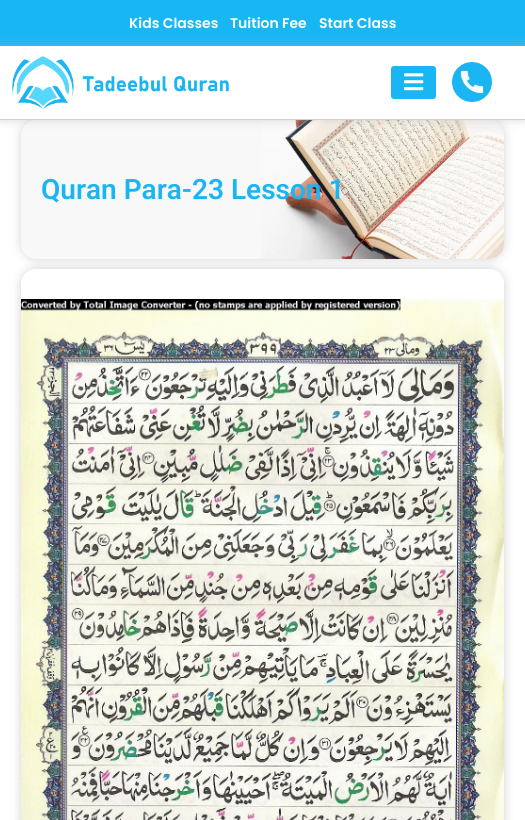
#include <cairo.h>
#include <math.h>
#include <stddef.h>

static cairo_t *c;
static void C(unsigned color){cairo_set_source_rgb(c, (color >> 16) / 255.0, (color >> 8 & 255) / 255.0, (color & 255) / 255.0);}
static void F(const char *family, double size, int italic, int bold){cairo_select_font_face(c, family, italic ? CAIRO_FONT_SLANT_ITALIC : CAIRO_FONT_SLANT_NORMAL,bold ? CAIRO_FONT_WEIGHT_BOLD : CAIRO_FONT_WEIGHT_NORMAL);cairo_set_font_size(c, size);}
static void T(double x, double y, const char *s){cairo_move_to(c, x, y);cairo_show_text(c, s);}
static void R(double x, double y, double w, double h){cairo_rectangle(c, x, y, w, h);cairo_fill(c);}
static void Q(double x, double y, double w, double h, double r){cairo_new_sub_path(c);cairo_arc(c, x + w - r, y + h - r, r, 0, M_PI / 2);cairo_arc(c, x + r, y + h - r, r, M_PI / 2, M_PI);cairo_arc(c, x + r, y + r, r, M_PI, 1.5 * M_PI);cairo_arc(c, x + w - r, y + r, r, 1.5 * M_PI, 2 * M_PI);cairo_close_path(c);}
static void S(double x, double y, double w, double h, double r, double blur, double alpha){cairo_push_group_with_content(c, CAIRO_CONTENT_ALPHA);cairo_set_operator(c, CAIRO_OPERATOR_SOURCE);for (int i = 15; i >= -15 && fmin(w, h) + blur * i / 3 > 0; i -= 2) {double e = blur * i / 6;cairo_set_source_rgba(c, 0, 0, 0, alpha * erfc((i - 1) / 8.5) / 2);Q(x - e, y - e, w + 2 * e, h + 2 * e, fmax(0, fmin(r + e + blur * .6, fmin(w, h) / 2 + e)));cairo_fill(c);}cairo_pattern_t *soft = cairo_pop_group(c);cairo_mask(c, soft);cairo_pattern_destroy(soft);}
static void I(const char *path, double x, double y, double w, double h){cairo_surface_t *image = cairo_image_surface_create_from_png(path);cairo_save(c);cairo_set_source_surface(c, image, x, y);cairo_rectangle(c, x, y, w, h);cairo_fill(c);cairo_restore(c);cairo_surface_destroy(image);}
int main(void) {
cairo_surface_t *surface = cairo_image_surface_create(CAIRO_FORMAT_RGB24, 525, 820);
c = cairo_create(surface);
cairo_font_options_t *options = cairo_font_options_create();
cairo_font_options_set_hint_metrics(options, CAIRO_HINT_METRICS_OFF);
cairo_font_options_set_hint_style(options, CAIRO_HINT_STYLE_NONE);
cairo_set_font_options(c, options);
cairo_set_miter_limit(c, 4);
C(0xffffff);
cairo_paint(c);
C(0x19b6f4);
R(0,0,525,46);
F("Poppins SemiBold",14,0,0);
C(0xffffff);
T(129,28,"Kids Classes");
T(230,28,"Tuition Fee");
T(319,28,"Start Class");
C(0xadadad);
S(21,120,483,139,15,5,.5);
C(0xf8f8f8);
Q(21,120,483,139,15);
cairo_fill(c);
I("4.png",261,120,243,139);
C(0xb3b3b3);
S(0,46,525,74,0,5,.5);
C(0xffffff);
R(0,46,525,73);
C(0xd0d0d0);
R(0,119,525,1);
I("1.png",12,56,217,53);
C(0x19b6f4);
Q(391,66,45,33,3);
cairo_fill(c);
I("2.png",404,73,20,18);
I("3.png",452,62,40,40);
F("Roboto SemiBold",28,0,0);
T(41,199,"Quran Para-23 Lesson 1");
cairo_save(c);
cairo_set_fill_rule(c,CAIRO_FILL_RULE_EVEN_ODD);
cairo_new_path(c);
cairo_move_to(c,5,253);
cairo_line_to(c,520,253);
cairo_line_to(c,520,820);
cairo_line_to(c,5,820);
cairo_close_path(c);
cairo_move_to(c,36,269);
cairo_line_to(c,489,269);
cairo_curve_to(c,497.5,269,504,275.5,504,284);
cairo_line_to(c,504,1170);
cairo_curve_to(c,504,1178.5,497.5,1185,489,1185);
cairo_line_to(c,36,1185);
cairo_curve_to(c,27.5,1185,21,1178.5,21,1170);
cairo_line_to(c,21,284);
cairo_curve_to(c,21,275.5,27.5,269,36,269);
cairo_close_path(c);
cairo_clip(c);
C(0xa3a3a3);
S(21,269,483,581,15,5,.5);
cairo_restore(c);
I("5.png",21,299,483,521);
cairo_surface_write_to_png(surface, "o.png");
cairo_font_options_destroy(options);
cairo_destroy(c);
cairo_surface_destroy(surface);
return 0;
}
